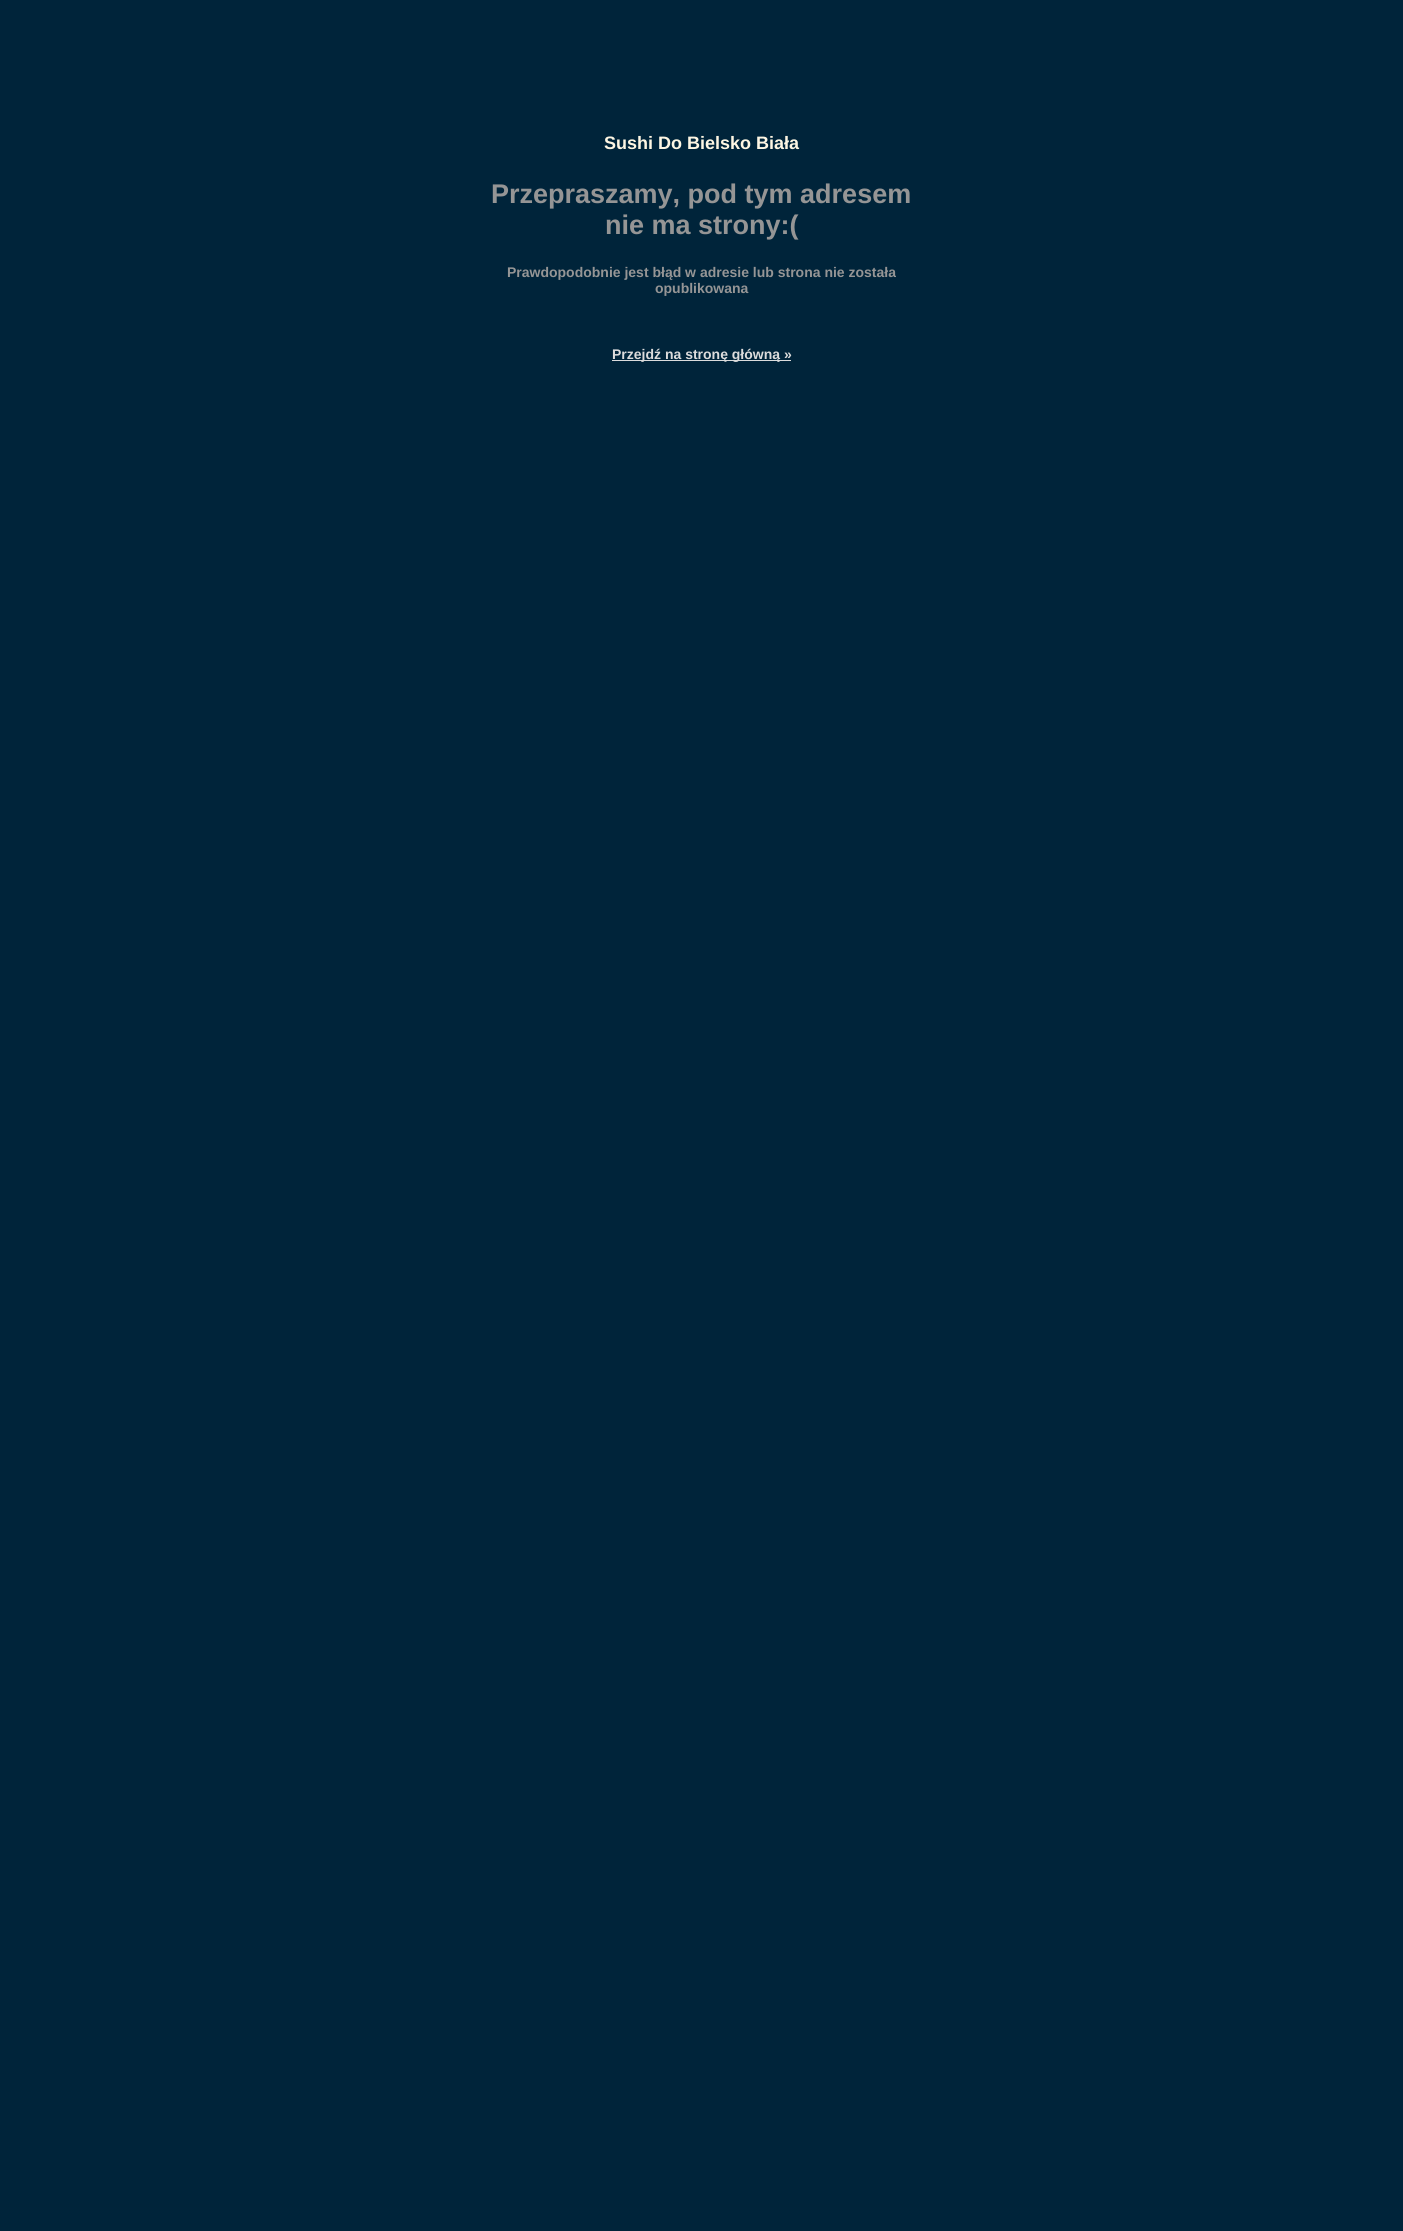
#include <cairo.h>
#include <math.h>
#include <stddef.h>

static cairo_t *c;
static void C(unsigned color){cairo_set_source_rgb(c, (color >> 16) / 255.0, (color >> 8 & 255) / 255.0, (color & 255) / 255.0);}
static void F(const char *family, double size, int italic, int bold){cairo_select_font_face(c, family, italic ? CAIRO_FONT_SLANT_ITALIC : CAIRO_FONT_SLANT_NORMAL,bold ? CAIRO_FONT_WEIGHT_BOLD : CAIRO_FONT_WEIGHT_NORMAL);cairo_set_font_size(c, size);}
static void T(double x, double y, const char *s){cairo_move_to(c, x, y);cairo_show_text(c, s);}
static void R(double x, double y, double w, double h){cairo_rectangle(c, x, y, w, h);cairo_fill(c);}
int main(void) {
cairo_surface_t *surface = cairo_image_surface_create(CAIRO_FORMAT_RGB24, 1403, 2231);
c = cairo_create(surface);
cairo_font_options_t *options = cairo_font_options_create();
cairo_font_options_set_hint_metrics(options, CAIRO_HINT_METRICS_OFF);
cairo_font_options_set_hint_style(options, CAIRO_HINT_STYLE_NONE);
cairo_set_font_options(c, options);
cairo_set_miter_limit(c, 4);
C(0x00243a);
cairo_paint(c);
F("Liberation Sans",18,0,1);
C(0xfdf6e3);
T(604,149,"Sushi Do Bielsko Biała");
F("Liberation Sans",27,0,1);
C(0x959595);
T(491,203,"Przepraszamy, pod tym adresem");
T(605,234,"nie ma strony:(");
F("Liberation Sans",14,0,1);
T(507,277,"Prawdopodobnie jest błąd w adresie lub strona nie została");
T(655,293,"opublikowana");
C(0xdcdcdc);
R(612,360,179,1);
T(612,359,"Przejdź na stronę główną »");
cairo_surface_write_to_png(surface, "o.png");
cairo_font_options_destroy(options);
cairo_destroy(c);
cairo_surface_destroy(surface);
return 0;
}
